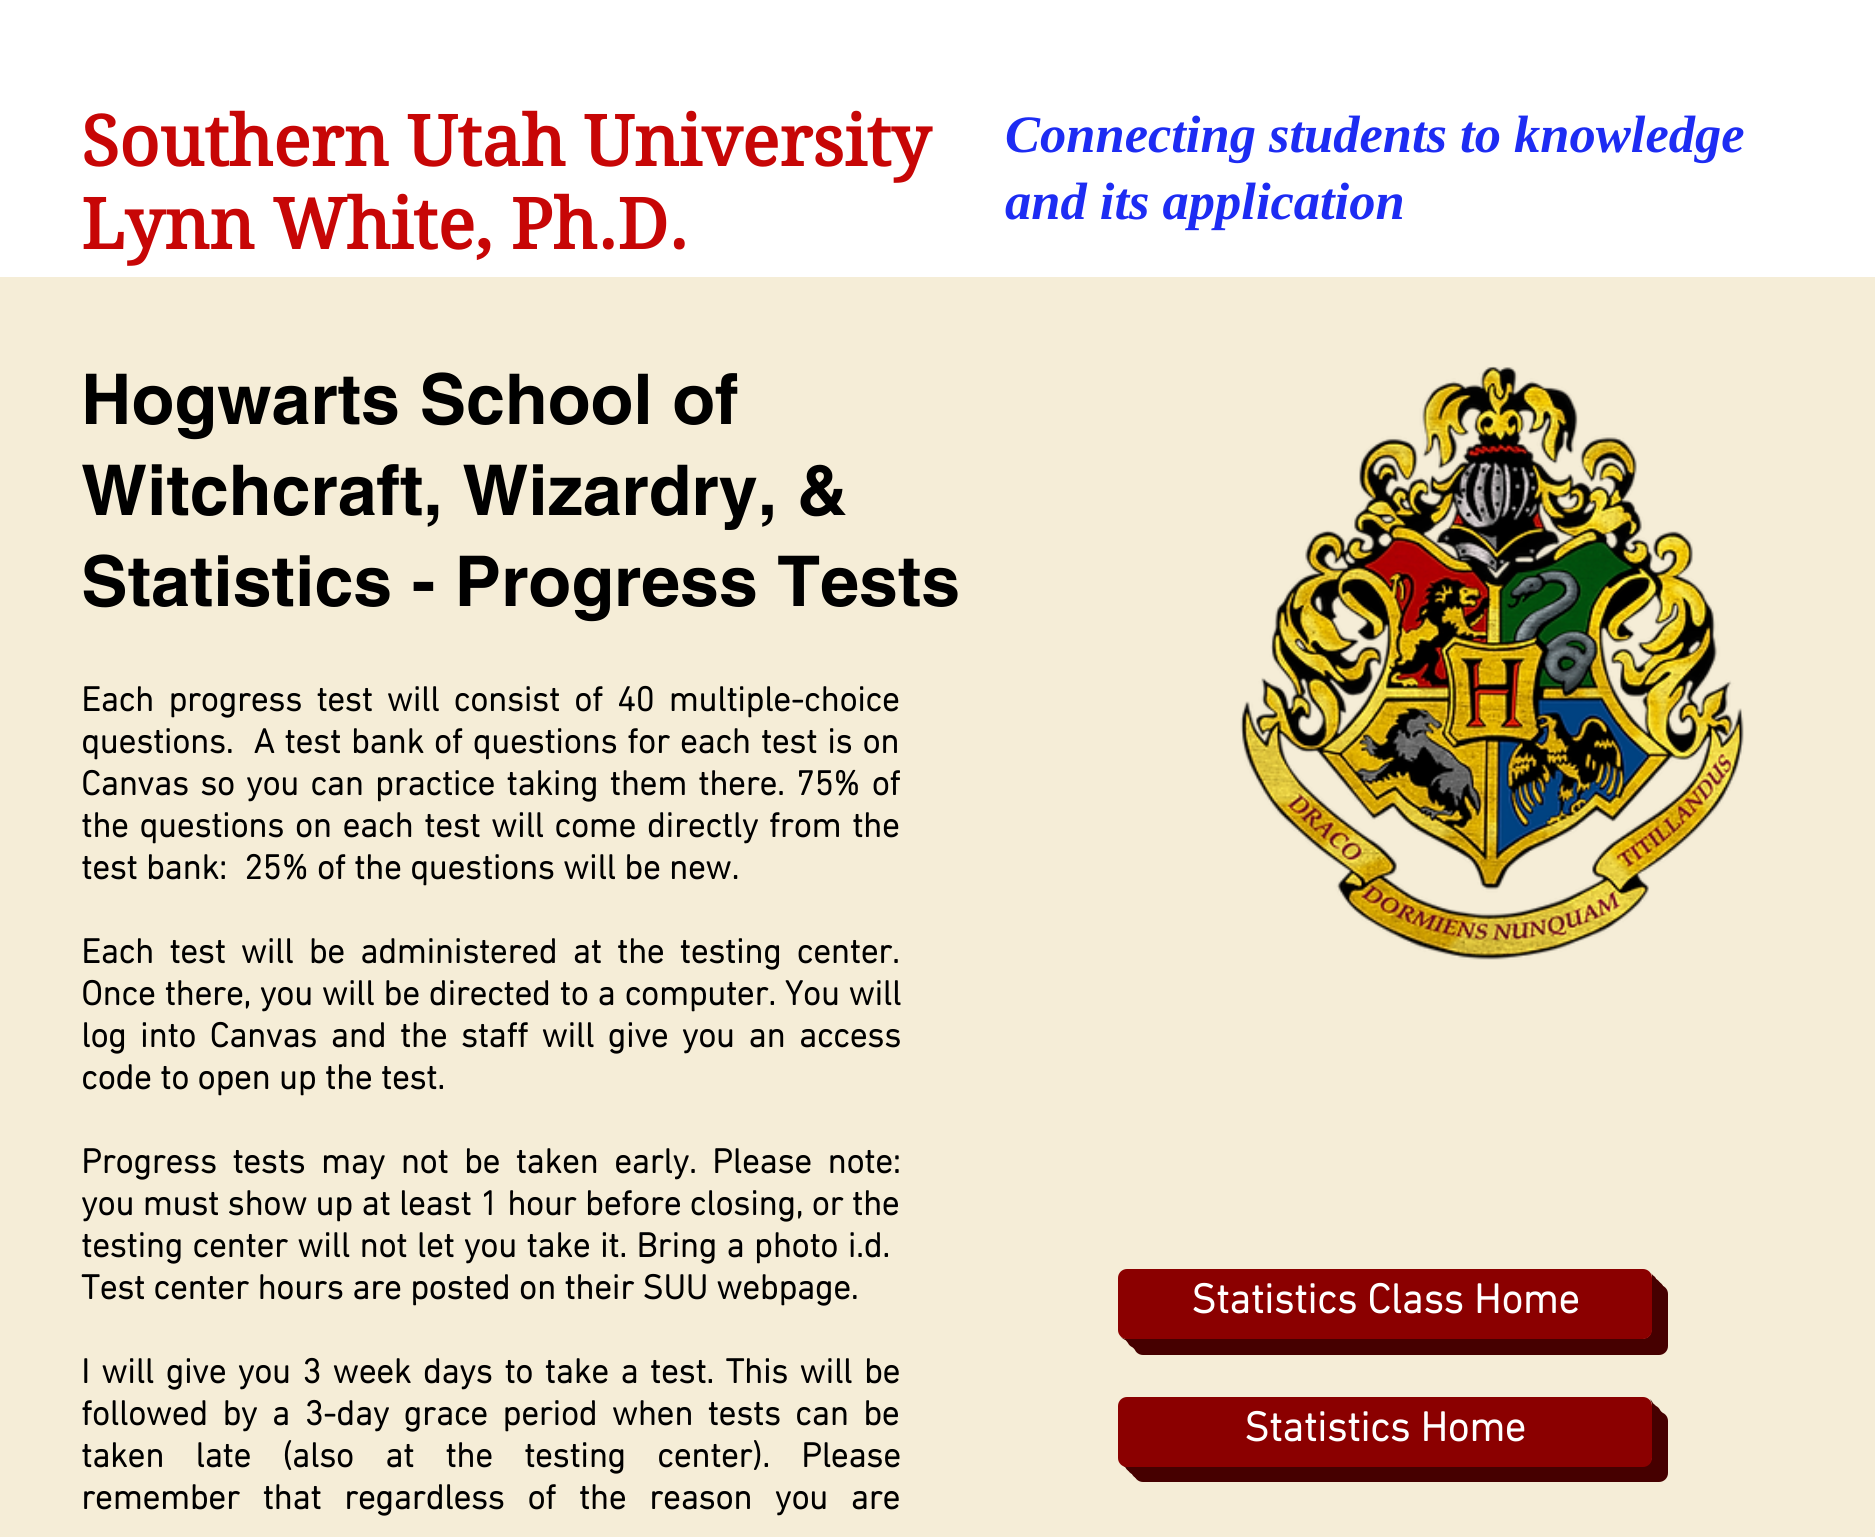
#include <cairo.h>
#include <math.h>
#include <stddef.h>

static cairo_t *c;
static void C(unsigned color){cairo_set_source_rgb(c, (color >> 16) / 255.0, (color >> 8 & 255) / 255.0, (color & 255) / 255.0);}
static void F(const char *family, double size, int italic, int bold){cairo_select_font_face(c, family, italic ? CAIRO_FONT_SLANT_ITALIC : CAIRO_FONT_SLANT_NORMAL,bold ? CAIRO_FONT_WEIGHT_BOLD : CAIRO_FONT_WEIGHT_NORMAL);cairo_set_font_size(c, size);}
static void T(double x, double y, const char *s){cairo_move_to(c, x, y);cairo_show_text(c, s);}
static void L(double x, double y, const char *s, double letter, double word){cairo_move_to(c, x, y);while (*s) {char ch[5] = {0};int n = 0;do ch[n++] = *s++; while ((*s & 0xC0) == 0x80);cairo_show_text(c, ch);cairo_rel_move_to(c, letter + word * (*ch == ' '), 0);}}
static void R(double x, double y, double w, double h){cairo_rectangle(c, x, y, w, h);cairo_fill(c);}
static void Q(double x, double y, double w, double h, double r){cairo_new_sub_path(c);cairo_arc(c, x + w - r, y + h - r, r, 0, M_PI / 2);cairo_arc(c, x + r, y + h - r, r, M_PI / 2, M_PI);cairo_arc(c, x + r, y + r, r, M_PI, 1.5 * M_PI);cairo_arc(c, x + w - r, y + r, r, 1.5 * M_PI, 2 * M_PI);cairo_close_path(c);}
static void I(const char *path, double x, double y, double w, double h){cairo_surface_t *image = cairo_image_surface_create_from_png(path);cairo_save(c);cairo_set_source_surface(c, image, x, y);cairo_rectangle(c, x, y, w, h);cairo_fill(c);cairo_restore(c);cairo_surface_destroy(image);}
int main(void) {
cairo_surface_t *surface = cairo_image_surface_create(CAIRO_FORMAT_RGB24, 1875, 1537);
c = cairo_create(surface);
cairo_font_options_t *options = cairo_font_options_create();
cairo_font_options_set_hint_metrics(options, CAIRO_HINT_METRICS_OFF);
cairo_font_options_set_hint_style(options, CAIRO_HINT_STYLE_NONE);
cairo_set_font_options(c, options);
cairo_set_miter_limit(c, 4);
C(0xffffff);
cairo_paint(c);
F("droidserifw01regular",70,0,1);
C(0xc70606);
T(81,166,"Southern Utah University");
T(81,249,"Lynn White, Ph.D.");
F("Liberation Serif",52.5,1,1);
C(0x1d2cf3);
T(1005,152,"Connecting students to knowledge");
T(1005,219,"and its application");
C(0xf5edd7);
R(0,277,1875,1260);
F("helvetica",70,0,1);
C(0x000000);
T(81,424,"Hogwarts School of");
T(81,515,"Witchcraft, Wizardry, &");
T(81,606,"Statistics - Progress Tests");
I("1.png",1240,366,504,594);
F("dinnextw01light",35,0,1);
L(81,711,"Each progress test will consist of 40 multiple-choice",0,5.75);
L(81,753,"questions.  A test bank of questions for each test is on",0,1.5);
L(81,795,"Canvas so you can practice taking them there. 75% of",0,2.75);
L(81,837,"the questions on each test will come directly from the",0,2.25);
T(81,879,"test bank:  25% of the questions will be new.");
L(81,963,"Each test will be administered at the testing center.",0,6.75);
L(81,1005,"Once there, you will be directed to a computer. You will",0,.5);
L(81,1047,"log into Canvas and the staff will give you an access",0,5);
T(81,1089,"code to open up the test.");
L(81,1173,"Progress tests may not be taken early. Please note:",0,7);
T(81,1215,"you must show up at least 1 hour before closing, or the");
L(81,1257,"testing center will not let you take it. Bring a photo i.d.",0,1);
T(81,1299,"Test center hours are posted on their SUU webpage.");
L(81,1383,"I will give you 3 week days to take a test. This will be",0,3.1);
L(81,1425,"followed by a 3-day grace period when tests can be",0,6);
L(81,1467,"taken late (also at the testing center). Please",0,22.75);
L(81,1509,"remember that regardless of the reason you are",0,14.25);
C(0x460000);
cairo_new_path(c);
cairo_move_to(c,1134,1339);
cairo_line_to(c,1134,1346);
cairo_curve_to(c,1134,1351,1138,1355,1143,1355);
cairo_line_to(c,1659,1355);
cairo_curve_to(c,1664,1355,1668,1351,1668,1346);
cairo_line_to(c,1668,1294);
cairo_curve_to(c,1668,1289,1664,1285,1659,1285);
cairo_line_to(c,1652,1285);
cairo_line_to(c,1652,1330);
cairo_curve_to(c,1652,1335,1648,1339,1643,1339);
cairo_close_path(c);
cairo_fill(c);
cairo_new_path(c);
cairo_move_to(c,1131,1339);
cairo_line_to(c,1131,1342);
cairo_curve_to(c,1131,1347,1135,1351,1140,1351);
cairo_line_to(c,1655,1351);
cairo_curve_to(c,1660,1351,1664,1347,1664,1342);
cairo_line_to(c,1664,1290);
cairo_curve_to(c,1664,1285,1660,1281,1655,1281);
cairo_line_to(c,1652,1281);
cairo_line_to(c,1652,1330);
cairo_curve_to(c,1652,1335,1648,1339,1643,1339);
cairo_close_path(c);
cairo_fill(c);
cairo_new_path(c);
cairo_move_to(c,1127,1339);
cairo_curve_to(c,1127,1344,1131,1348,1136,1348);
cairo_line_to(c,1652,1348);
cairo_curve_to(c,1657,1348,1661,1344,1661,1339);
cairo_line_to(c,1661,1287);
cairo_curve_to(c,1661,1282,1657,1278,1652,1278);
cairo_line_to(c,1652,1330);
cairo_curve_to(c,1652,1335,1648,1339,1643,1339);
cairo_close_path(c);
cairo_fill(c);
cairo_new_path(c);
cairo_move_to(c,1125,1338);
cairo_curve_to(c,1126,1342,1129,1344,1133,1344);
cairo_line_to(c,1648,1344);
cairo_curve_to(c,1653,1344,1657,1340,1657,1335);
cairo_line_to(c,1657,1283);
cairo_curve_to(c,1657,1279,1655,1276,1652,1275);
cairo_line_to(c,1652,1321);
cairo_curve_to(c,1652,1328,1653,1339,1643,1339);
cairo_close_path(c);
cairo_fill(c);
cairo_new_path(c);
cairo_move_to(c,1121,1337);
cairo_curve_to(c,1123,1339,1126,1341,1129,1341);
cairo_line_to(c,1645,1341);
cairo_curve_to(c,1650,1341,1654,1337,1654,1332);
cairo_line_to(c,1654,1280);
cairo_curve_to(c,1654,1277,1653,1275,1651,1273);
cairo_curve_to(c,1652,1274,1652,1276,1652,1278);
cairo_line_to(c,1652,1330);
cairo_curve_to(c,1652,1335,1648,1339,1643,1339);
cairo_line_to(c,1127,1339);
cairo_curve_to(c,1125,1339,1123,1338,1121,1337);
cairo_close_path(c);
cairo_fill(c);
C(0x8b0000);
Q(1118,1269,534,70,9);
cairo_fill(c);
F("dinnextw01light",42,0,1);
C(0xffffff);
T(1191,1313,"Statistics Class Home");
C(0x460000);
cairo_new_path(c);
cairo_move_to(c,1134,1466);
cairo_line_to(c,1134,1473);
cairo_curve_to(c,1134,1478,1138,1482,1143,1482);
cairo_line_to(c,1659,1482);
cairo_curve_to(c,1664,1482,1668,1478,1668,1473);
cairo_line_to(c,1668,1421);
cairo_curve_to(c,1668,1416,1664,1412,1659,1412);
cairo_line_to(c,1652,1412);
cairo_line_to(c,1652,1458);
cairo_curve_to(c,1652,1463,1648,1466,1643,1466);
cairo_close_path(c);
cairo_fill(c);
cairo_new_path(c);
cairo_move_to(c,1131,1466);
cairo_line_to(c,1131,1470);
cairo_curve_to(c,1131,1475,1135,1479,1140,1479);
cairo_line_to(c,1655,1479);
cairo_curve_to(c,1660,1479,1664,1475,1664,1470);
cairo_line_to(c,1664,1418);
cairo_curve_to(c,1664,1413,1660,1409,1655,1409);
cairo_line_to(c,1652,1409);
cairo_line_to(c,1652,1458);
cairo_curve_to(c,1652,1463,1648,1466,1643,1466);
cairo_close_path(c);
cairo_fill(c);
cairo_new_path(c);
cairo_move_to(c,1127,1466);
cairo_curve_to(c,1127,1471,1131,1475,1136,1475);
cairo_line_to(c,1652,1475);
cairo_curve_to(c,1657,1475,1661,1471,1661,1466);
cairo_line_to(c,1661,1414);
cairo_curve_to(c,1661,1409,1657,1405,1652,1405);
cairo_line_to(c,1652,1458);
cairo_curve_to(c,1652,1463,1648,1466,1643,1466);
cairo_close_path(c);
cairo_fill(c);
cairo_new_path(c);
cairo_move_to(c,1125,1466);
cairo_curve_to(c,1126,1470,1129,1472,1133,1472);
cairo_line_to(c,1648,1472);
cairo_curve_to(c,1653,1472,1657,1468,1657,1463);
cairo_line_to(c,1657,1411);
cairo_curve_to(c,1657,1407,1655,1404,1652,1403);
cairo_line_to(c,1652,1449);
cairo_curve_to(c,1652,1456,1653,1466,1643,1466);
cairo_close_path(c);
cairo_fill(c);
cairo_new_path(c);
cairo_move_to(c,1123,1465);
cairo_curve_to(c,1124,1467,1126,1468,1129,1468);
cairo_line_to(c,1645,1468);
cairo_curve_to(c,1650,1468,1654,1464,1654,1459);
cairo_line_to(c,1654,1407);
cairo_curve_to(c,1654,1404,1652,1401,1650,1399);
cairo_curve_to(c,1651,1401,1652,1403,1652,1405);
cairo_line_to(c,1652,1458);
cairo_curve_to(c,1652,1463,1648,1466,1643,1466);
cairo_line_to(c,1127,1466);
cairo_curve_to(c,1125,1466,1124,1466,1123,1465);
cairo_close_path(c);
cairo_fill(c);
C(0x8b0000);
Q(1118,1397,534,70,9);
cairo_fill(c);
C(0xffffff);
T(1244,1441,"Statistics Home");
cairo_surface_write_to_png(surface, "o.png");
cairo_font_options_destroy(options);
cairo_destroy(c);
cairo_surface_destroy(surface);
return 0;
}
